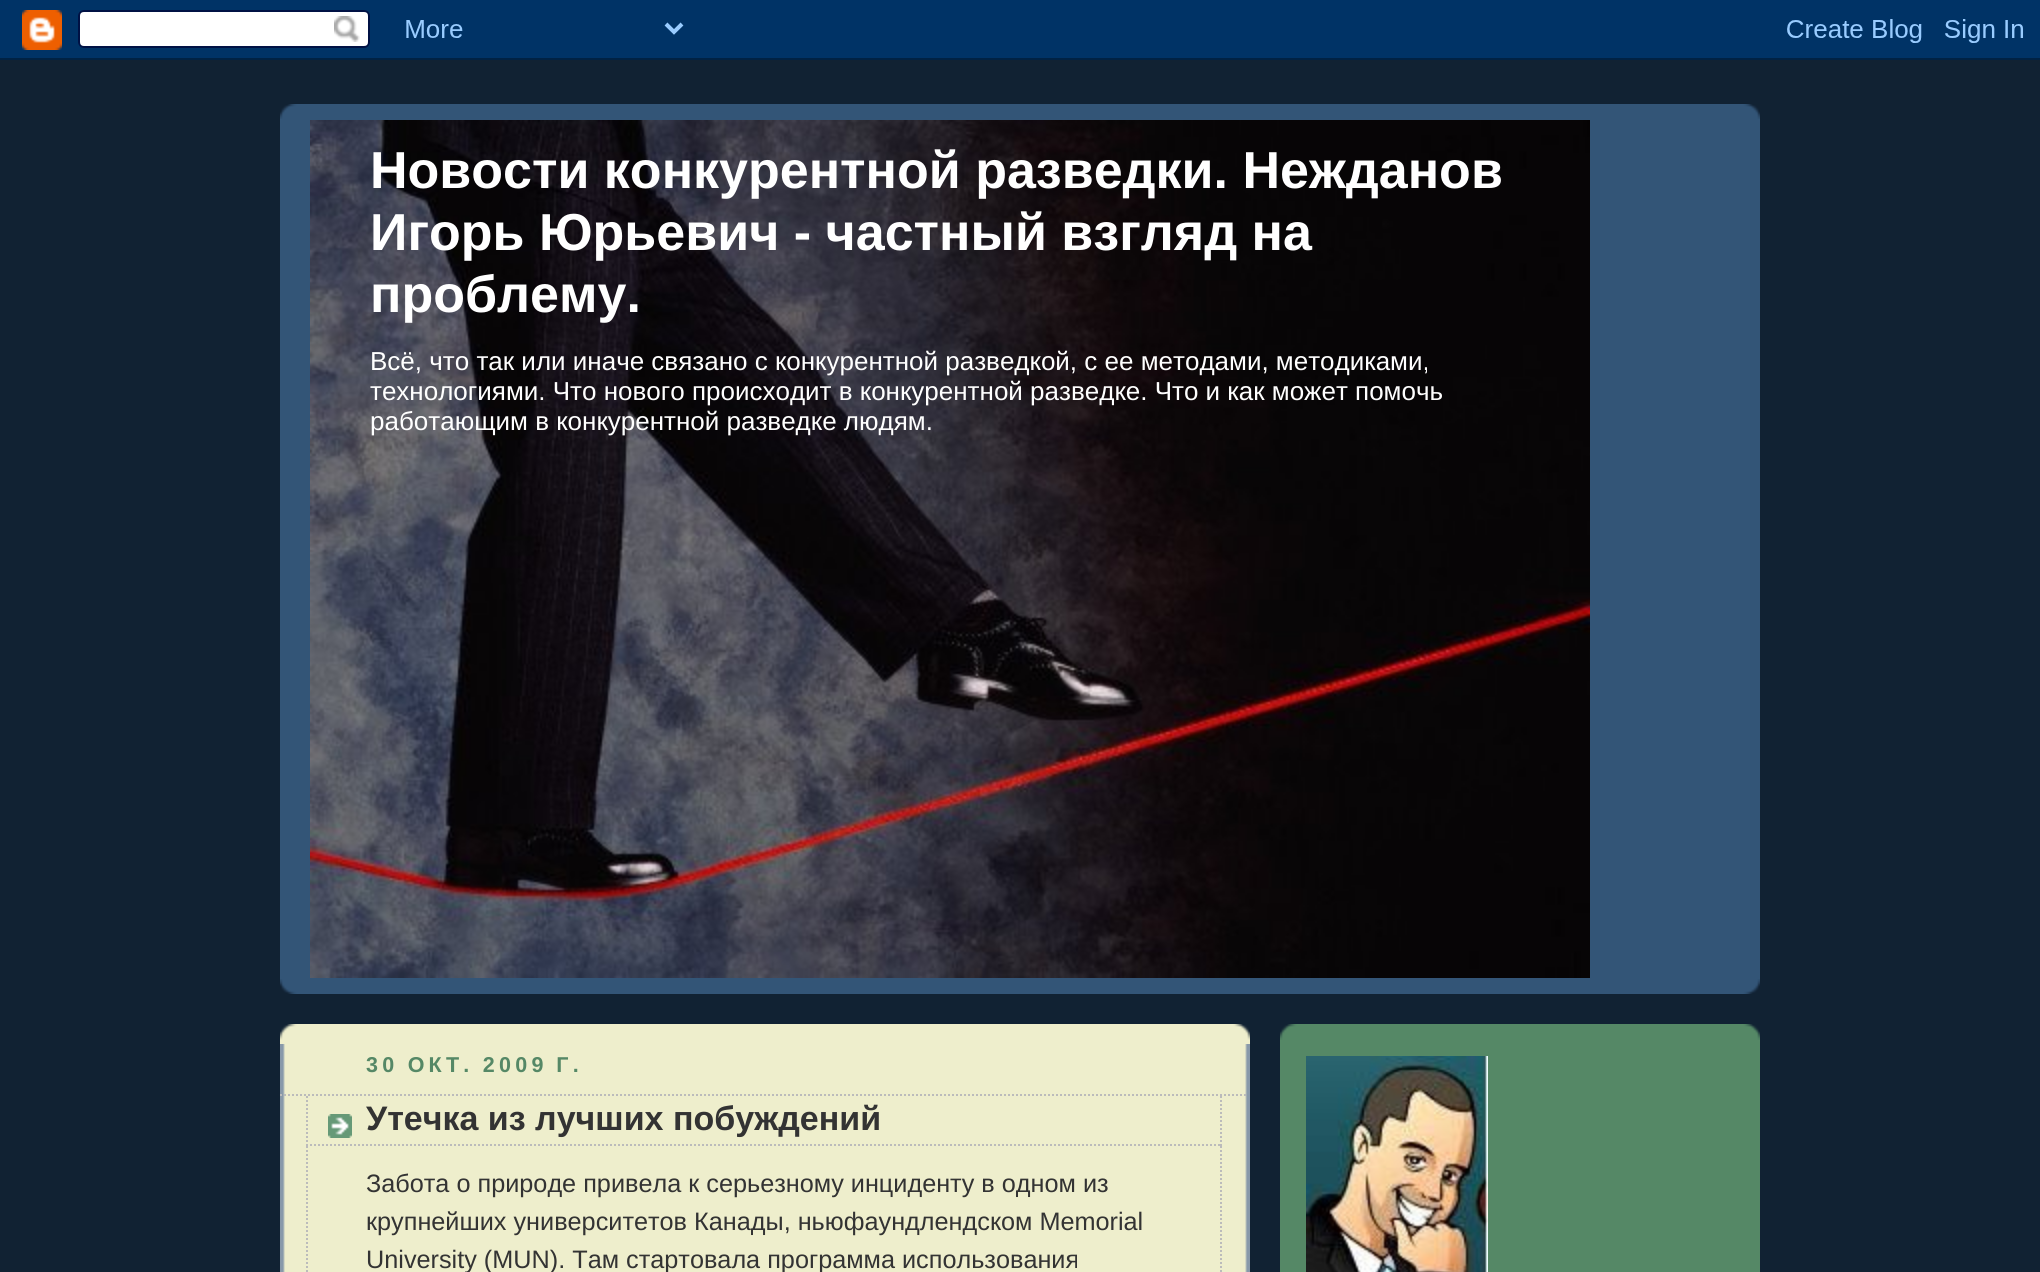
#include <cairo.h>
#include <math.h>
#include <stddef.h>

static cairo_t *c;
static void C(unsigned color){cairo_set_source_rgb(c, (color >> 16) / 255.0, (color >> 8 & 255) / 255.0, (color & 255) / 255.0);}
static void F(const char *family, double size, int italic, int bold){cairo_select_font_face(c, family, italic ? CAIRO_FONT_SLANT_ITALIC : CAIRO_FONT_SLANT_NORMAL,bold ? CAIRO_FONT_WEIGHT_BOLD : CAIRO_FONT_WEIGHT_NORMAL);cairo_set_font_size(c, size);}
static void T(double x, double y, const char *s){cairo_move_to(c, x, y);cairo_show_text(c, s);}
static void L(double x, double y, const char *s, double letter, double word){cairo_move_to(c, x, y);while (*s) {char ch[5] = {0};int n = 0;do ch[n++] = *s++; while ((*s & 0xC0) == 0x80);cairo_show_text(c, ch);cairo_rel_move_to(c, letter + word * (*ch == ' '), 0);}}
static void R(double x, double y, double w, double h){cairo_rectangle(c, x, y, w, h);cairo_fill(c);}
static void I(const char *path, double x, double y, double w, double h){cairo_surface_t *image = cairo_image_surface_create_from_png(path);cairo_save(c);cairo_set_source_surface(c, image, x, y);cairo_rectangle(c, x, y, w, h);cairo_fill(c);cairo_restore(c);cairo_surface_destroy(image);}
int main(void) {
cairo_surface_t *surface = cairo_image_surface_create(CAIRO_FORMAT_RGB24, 2040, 1272);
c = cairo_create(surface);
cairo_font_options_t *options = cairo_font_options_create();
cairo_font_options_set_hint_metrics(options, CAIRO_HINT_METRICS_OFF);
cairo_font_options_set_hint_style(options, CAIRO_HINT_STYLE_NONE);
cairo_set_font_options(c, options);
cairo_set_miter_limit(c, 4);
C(0x112233);
cairo_paint(c);
I("1.png",0,0,2040,60);
C(0x335577);
R(280,104,1480,890);
I("2.png",280,104,1480,15);
I("3.png",280,979,1480,15);
I("4.png",310,120,1280,858);
F("Liberation Sans",52,0,1);
C(0xffffff);
T(370,188,"Новости конкурентной разведки. Нежданов");
T(370,250,"Игорь Юрьевич - частный взгляд на");
T(370,312,"проблему.");
F("Liberation Sans",26,0,0);
T(370,370,"Всё, что так или иначе связано с конкурентной разведкой, с ее методами, методиками,");
T(370,400,"технологиями. Что нового происходит в конкурентной разведке. Что и как может помочь");
T(370,430,"работающим в конкурентной разведке людям.");
C(0xeeeecc);
R(280,1024,970,248);
I("5.png",280,1024,970,16);
I("6.png",280,1044,970,228);
F("Liberation Sans",21.5,0,1);
C(0x558866);
L(366,1072,"30 ОКТ. 2009 Г.",4.25,-1);
cairo_new_path(c);
cairo_move_to(c,280,1095);
cairo_line_to(c,1248,1095);
C(0xbbbbbb);
cairo_set_dash(c,(double[]){2,2},2,0);
cairo_stroke(c);
I("7.png",328,1114,24,24);
cairo_new_path(c);
cairo_move_to(c,1221,1096);
cairo_line_to(c,1221,1146);
cairo_stroke(c);
cairo_new_path(c);
cairo_move_to(c,306,1145);
cairo_line_to(c,1222,1145);
cairo_stroke(c);
cairo_new_path(c);
cairo_move_to(c,307,1096);
cairo_line_to(c,307,1146);
cairo_stroke(c);
F("Liberation Sans",34,0,1);
C(0x333333);
T(366,1130,"Утечка из лучших побуждений");
cairo_new_path(c);
cairo_move_to(c,1221,1146);
cairo_line_to(c,1221,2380);
C(0xbbbbbb);
cairo_stroke(c);
cairo_new_path(c);
cairo_move_to(c,307,1146);
cairo_line_to(c,307,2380);
cairo_stroke(c);
F("Liberation Sans",25.25,0,0);
C(0x333333);
T(366,1192,"Забота о природе привела к серьезному инциденту в одном из");
T(366,1230,"крупнейших университетов Канады, ньюфаундлендском Memorial");
T(366,1268,"University (MUN). Там стартовала программа использования");
C(0x558866);
R(1280,1024,480,248);
I("8.png",1280,1024,480,16);
I("9.png",1306,1056,182,216);
cairo_surface_write_to_png(surface, "o.png");
cairo_font_options_destroy(options);
cairo_destroy(c);
cairo_surface_destroy(surface);
return 0;
}
